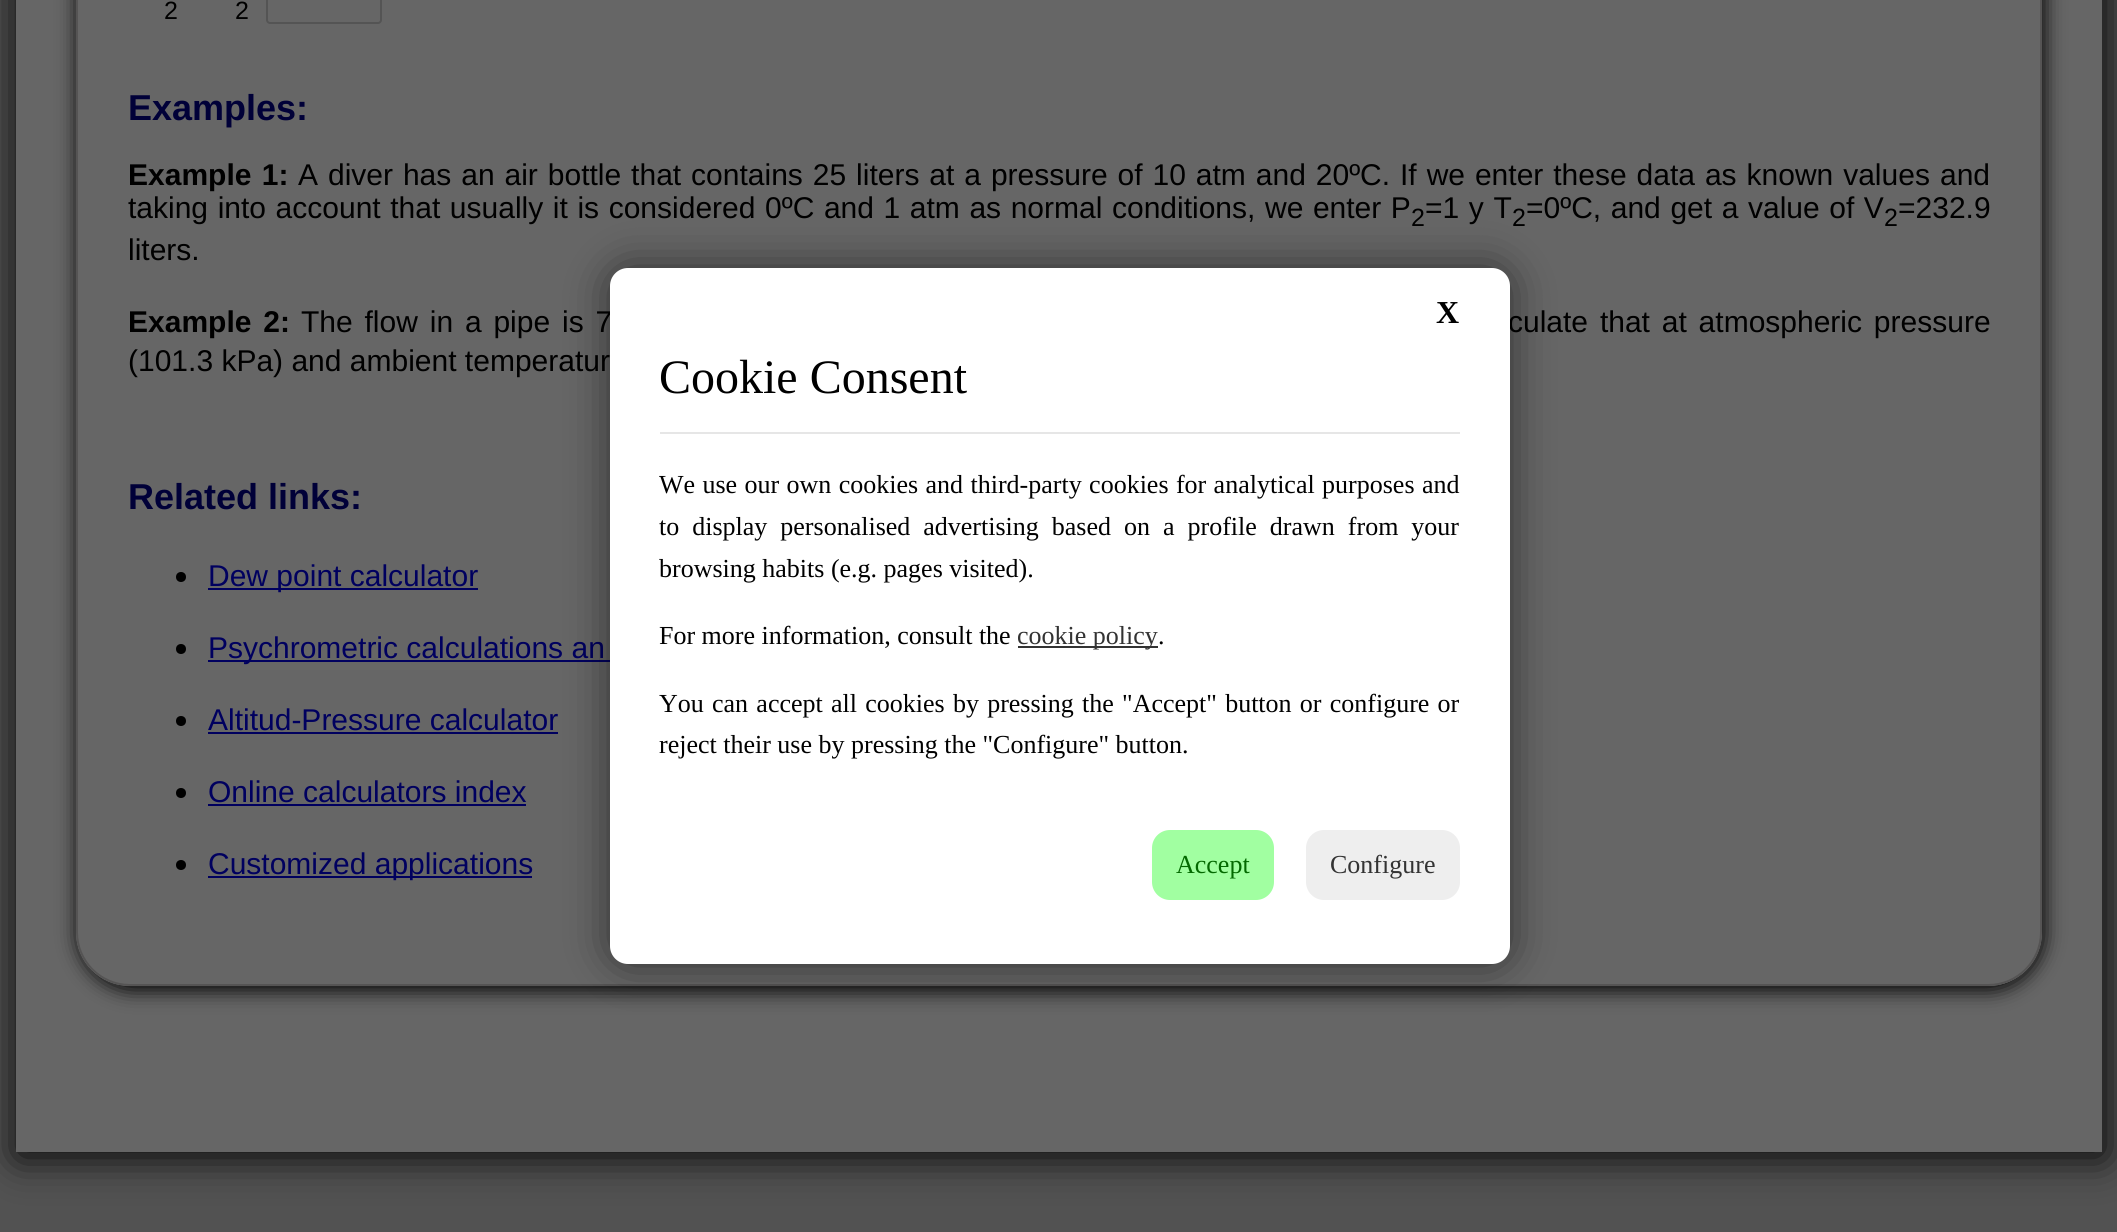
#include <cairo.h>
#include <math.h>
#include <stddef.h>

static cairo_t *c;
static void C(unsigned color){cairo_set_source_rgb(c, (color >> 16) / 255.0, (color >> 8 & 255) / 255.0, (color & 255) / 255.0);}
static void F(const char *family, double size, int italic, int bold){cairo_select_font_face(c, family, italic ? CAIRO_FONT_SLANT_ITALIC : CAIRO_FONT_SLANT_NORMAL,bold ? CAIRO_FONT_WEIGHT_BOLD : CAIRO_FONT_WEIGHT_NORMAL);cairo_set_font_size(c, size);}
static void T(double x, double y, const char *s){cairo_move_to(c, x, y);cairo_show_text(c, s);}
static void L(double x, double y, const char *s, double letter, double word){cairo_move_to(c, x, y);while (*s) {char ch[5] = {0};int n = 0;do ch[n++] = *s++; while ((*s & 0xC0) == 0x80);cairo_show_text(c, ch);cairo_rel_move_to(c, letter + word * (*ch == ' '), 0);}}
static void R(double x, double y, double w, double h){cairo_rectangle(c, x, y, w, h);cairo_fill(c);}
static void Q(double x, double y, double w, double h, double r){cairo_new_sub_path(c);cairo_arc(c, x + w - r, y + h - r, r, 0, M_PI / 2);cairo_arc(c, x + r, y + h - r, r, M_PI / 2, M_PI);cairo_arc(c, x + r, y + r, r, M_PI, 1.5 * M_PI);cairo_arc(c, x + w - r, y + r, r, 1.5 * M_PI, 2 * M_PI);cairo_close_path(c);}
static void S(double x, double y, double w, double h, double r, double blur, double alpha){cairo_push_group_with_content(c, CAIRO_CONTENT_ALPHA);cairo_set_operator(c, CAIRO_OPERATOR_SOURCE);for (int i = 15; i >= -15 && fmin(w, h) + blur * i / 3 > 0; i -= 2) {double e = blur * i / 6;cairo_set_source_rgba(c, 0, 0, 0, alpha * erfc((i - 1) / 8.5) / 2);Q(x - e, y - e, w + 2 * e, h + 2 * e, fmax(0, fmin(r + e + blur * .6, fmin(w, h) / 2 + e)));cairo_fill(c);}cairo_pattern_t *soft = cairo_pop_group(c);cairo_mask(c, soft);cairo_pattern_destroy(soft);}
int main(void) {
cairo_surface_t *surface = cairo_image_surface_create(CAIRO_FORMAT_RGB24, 2117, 1232);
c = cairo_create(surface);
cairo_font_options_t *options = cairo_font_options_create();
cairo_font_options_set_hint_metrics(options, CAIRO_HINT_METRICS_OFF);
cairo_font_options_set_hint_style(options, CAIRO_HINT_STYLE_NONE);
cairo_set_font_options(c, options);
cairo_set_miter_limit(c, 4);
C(0x525252);
cairo_paint(c);
C(0x000000);
S(18,-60,2086,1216,0,20,1);
C(0x666666);
R(16,0,2086,1152);
cairo_save(c);
cairo_set_fill_rule(c,CAIRO_FILL_RULE_EVEN_ODD);
cairo_new_path(c);
cairo_move_to(c,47,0);
cairo_line_to(c,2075,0);
cairo_line_to(c,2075,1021);
cairo_line_to(c,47,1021);
cairo_close_path(c);
cairo_move_to(c,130,-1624);
cairo_line_to(c,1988,-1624);
cairo_curve_to(c,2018,-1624,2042,-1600,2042,-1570);
cairo_line_to(c,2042,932);
cairo_curve_to(c,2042,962,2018,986,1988,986);
cairo_line_to(c,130,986);
cairo_curve_to(c,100,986,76,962,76,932);
cairo_line_to(c,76,-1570);
cairo_curve_to(c,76,-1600,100,-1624,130,-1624);
cairo_close_path(c);
cairo_clip(c);
C(0x000000);
S(78,-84,1966,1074,54,10,1);
cairo_restore(c);
Q(77,-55,1964,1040,53);
C(0x555454);
cairo_stroke(c);
F("Liberation Sans",25,0,0);
C(0x000000);
T(164,19,"2");
T(235,19,"2");
Q(267,-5,114,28,3);
C(0x545454);
cairo_stroke(c);
F("Liberation Sans",36,0,1);
C(0x000038);
T(128,120,"Examples:");
F("Liberation Sans",30,0,1);
C(0x000000);
L(128,185,"Example 1:",0,2);
F("Liberation Sans",30,0,0);
L(298,185,"A diver has an air bottle that contains 25 liters at a pressure of 10 atm and 20ºC. If we enter these data as known values",0,1.6);
T(1940,185,"and");
L(128,218,"taking into account that usually it is considered 0ºC and 1 atm as normal conditions, we enter P",0,1.25);
F("Liberation Sans",25,0,0);
T(1411,226,"2");
F("Liberation Sans",30,0,0);
L(1425,218,"=1 y T",0,1.25);
F("Liberation Sans",25,0,0);
T(1512,226,"2");
F("Liberation Sans",30,0,0);
L(1526,218,"=0ºC, and get a value of V",0,1.25);
F("Liberation Sans",25,0,0);
T(1884,226,"2");
F("Liberation Sans",30,0,0);
T(1898,218,"=232.9");
T(128,260,"liters.");
F("Liberation Sans",30,0,1);
L(128,332,"Example 2:",0,3.5);
F("Liberation Sans",30,0,0);
L(301,332,"The flow in a pipe is 7",0,3.5);
L(1508,332,"culate that at atmospheric pressure",0,3.5);
T(128,371,"(101.3 kPa) and ambient temperatur");
F("Liberation Sans",36,0,1);
C(0x000038);
T(128,509,"Related links:");
C(0x000000);
cairo_new_path(c);
cairo_arc(c,181,577,5,0,2 * M_PI);
cairo_fill(c);
C(0x00005f);
R(208,588,270,2);
F("Liberation Sans",30,0,0);
T(208,586,"Dew point calculator");
C(0x000000);
cairo_new_path(c);
cairo_arc(c,181,649,5,0,2 * M_PI);
cairo_fill(c);
C(0x00005f);
R(208,660,402,2);
T(208,658,"Psychrometric calculations an");
C(0x000000);
cairo_new_path(c);
cairo_arc(c,181,721,5,0,2 * M_PI);
cairo_fill(c);
C(0x00005f);
T(208,730,"Altitud-Pressure calculator");
R(208,732,350,2);
C(0x000000);
cairo_new_path(c);
cairo_arc(c,181,793,5,0,2 * M_PI);
cairo_fill(c);
C(0x00005f);
T(208,802,"Online calculators index");
R(208,804,318,2);
C(0x000000);
cairo_new_path(c);
cairo_arc(c,181,865,5,0,2 * M_PI);
cairo_fill(c);
C(0x00005f);
R(208,876,324,2);
T(208,874,"Customized applications");
C(0x000000);
S(610,268,900,696,18,22,.54);
C(0xffffff);
Q(610,268,900,696,18);
cairo_fill(c);
F("Liberation Serif",32,0,1);
C(0x000000);
T(1436,323,"X");
C(0xe6e6e6);
R(660,432,800,2);
F("Liberation Serif",48,0,0);
C(0x000000);
T(659,393,"Cookie Consent");
F("Liberation Serif",26,0,0);
L(659,493,"We use our own cookies and third-party cookies for analytical purposes and",0,.9);
L(659,535,"to display personalised advertising based on a profile drawn from your",0,6.5);
T(659,577,"browsing habits (e.g. pages visited).");
T(659,644,"For more information, consult the");
C(0x333333);
R(1018,646,140,2);
T(1017,644,"cookie policy");
C(0x000000);
T(1158,644,".");
L(659,712,"You can accept all cookies by pressing the \"Accept\" button or configure or",0,1.75);
T(659,753,"reject their use by pressing the \"Configure\" button.");
C(0xa1ffa1);
Q(1152,830,122,70,18);
cairo_fill(c);
C(0x036900);
T(1176,873,"Accept");
C(0xeeeeee);
Q(1306,830,154,70,18);
cairo_fill(c);
C(0x333333);
T(1330,873,"Configure");
cairo_surface_write_to_png(surface, "o.png");
cairo_font_options_destroy(options);
cairo_destroy(c);
cairo_surface_destroy(surface);
return 0;
}
